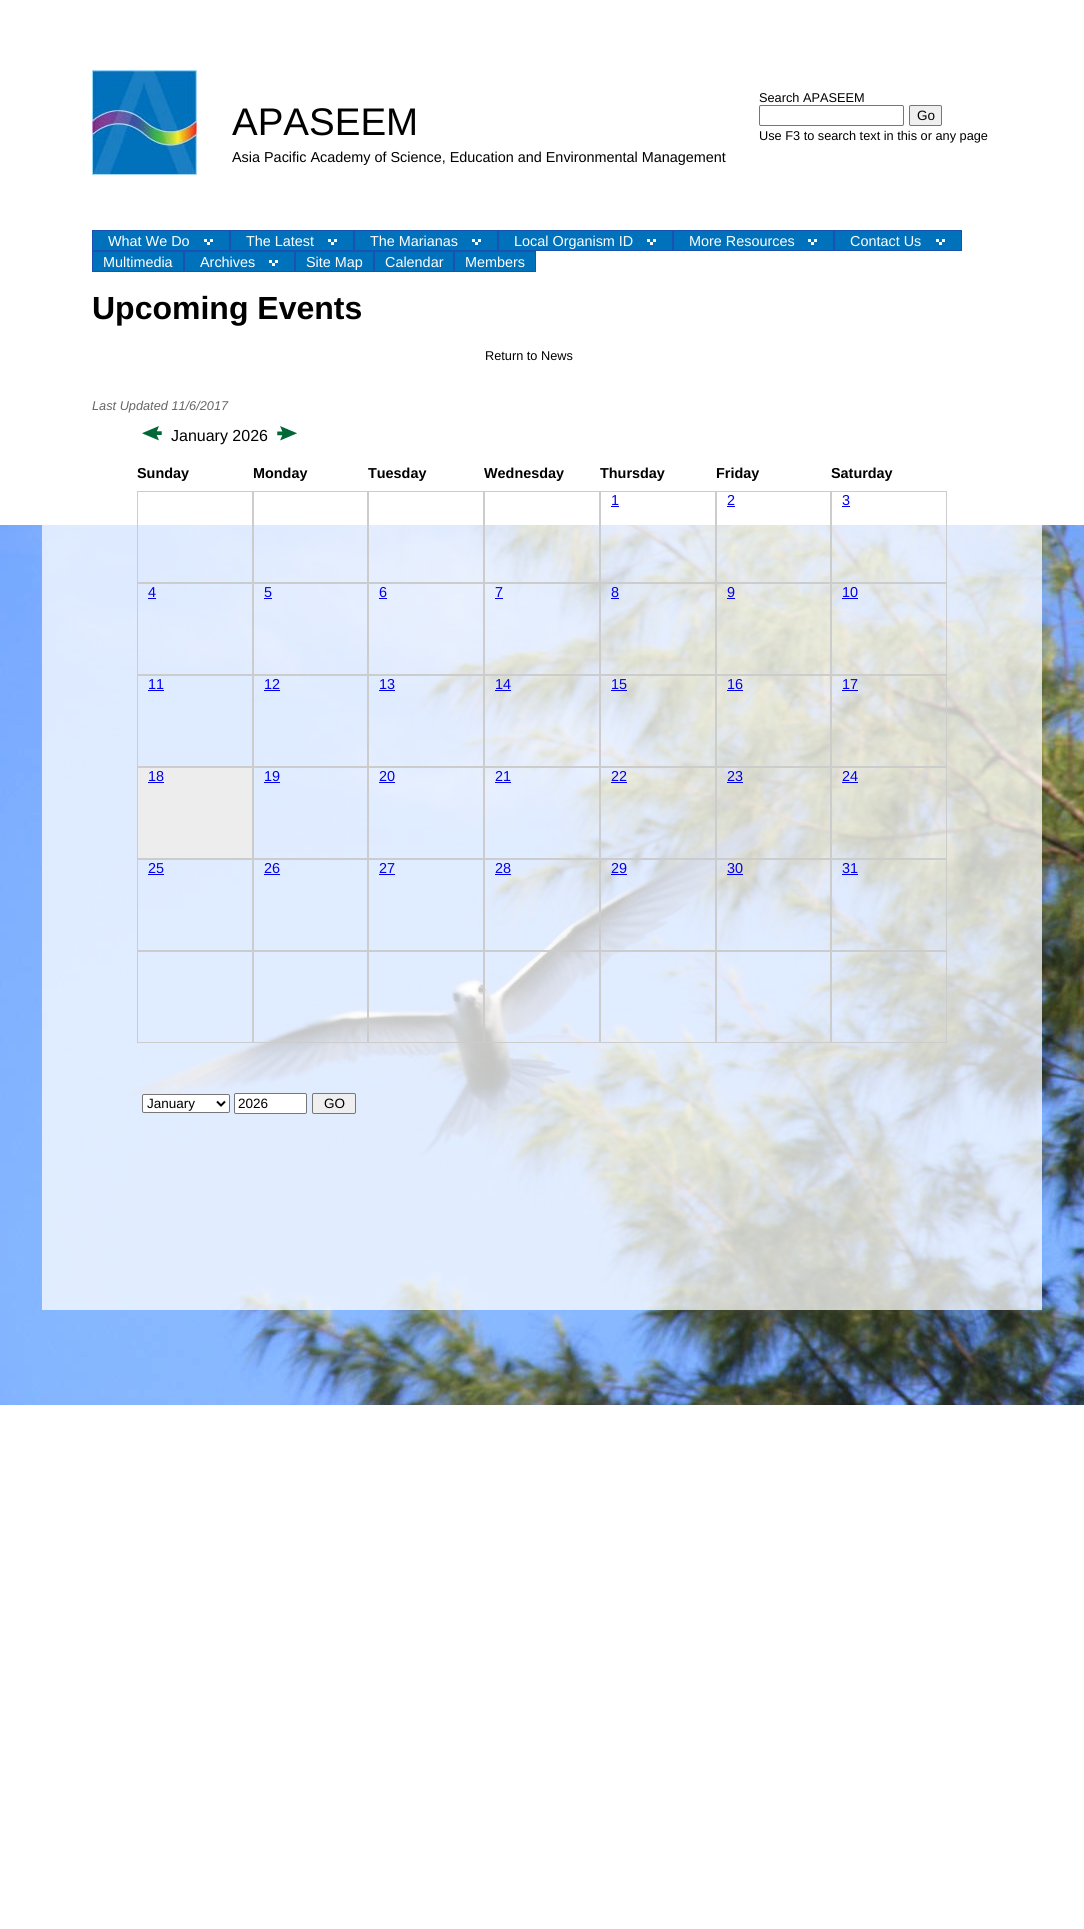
#include <cairo.h>
#include <math.h>
#include <stddef.h>

static cairo_t *c;
static void C(unsigned color){cairo_set_source_rgb(c, (color >> 16) / 255.0, (color >> 8 & 255) / 255.0, (color & 255) / 255.0);}
static void F(const char *family, double size, int italic, int bold){cairo_select_font_face(c, family, italic ? CAIRO_FONT_SLANT_ITALIC : CAIRO_FONT_SLANT_NORMAL,bold ? CAIRO_FONT_WEIGHT_BOLD : CAIRO_FONT_WEIGHT_NORMAL);cairo_set_font_size(c, size);}
static void T(double x, double y, const char *s){cairo_move_to(c, x, y);cairo_show_text(c, s);}
static void R(double x, double y, double w, double h){cairo_rectangle(c, x, y, w, h);cairo_fill(c);}
static void Q(double x, double y, double w, double h, double r){cairo_new_sub_path(c);cairo_arc(c, x + w - r, y + h - r, r, 0, M_PI / 2);cairo_arc(c, x + r, y + h - r, r, M_PI / 2, M_PI);cairo_arc(c, x + r, y + r, r, M_PI, 1.5 * M_PI);cairo_arc(c, x + w - r, y + r, r, 1.5 * M_PI, 2 * M_PI);cairo_close_path(c);}
static void I(const char *path, double x, double y, double w, double h){cairo_surface_t *image = cairo_image_surface_create_from_png(path);cairo_save(c);cairo_set_source_surface(c, image, x, y);cairo_rectangle(c, x, y, w, h);cairo_fill(c);cairo_restore(c);cairo_surface_destroy(image);}
int main(void) {
cairo_surface_t *surface = cairo_image_surface_create(CAIRO_FORMAT_RGB24, 1084, 1929);
c = cairo_create(surface);
cairo_font_options_t *options = cairo_font_options_create();
cairo_font_options_set_hint_metrics(options, CAIRO_HINT_METRICS_OFF);
cairo_font_options_set_hint_style(options, CAIRO_HINT_STYLE_NONE);
cairo_set_font_options(c, options);
cairo_set_miter_limit(c, 4);
C(0xffffff);
cairo_paint(c);
I("1.png",0,525,1084,880);
cairo_set_source_rgba(c,1,1,1,0.75);
R(42,525,1000,785);
I("2.png",92,70,105,105);
F("Liberation Sans",38.5,0,0);
C(0x000000);
T(232,135,"APASEEM");
F("Liberation Sans",12.75,0,0);
T(759,102,"Search APASEEM");
Q(759.5,105.5,144,20,1.5);
C(0x767676);
cairo_set_line_width(c,1);
cairo_stroke(c);
C(0xefefef);
Q(909.5,105.5,32,20,1.5);
cairo_fill_preserve(c);
C(0x767676);
cairo_stroke(c);
F("Liberation Sans",13.5,0,0);
C(0x000000);
T(917,120,"Go");
F("Liberation Sans",12.75,0,0);
T(759,140,"Use F3 to search text in this or any page");
F("Liberation Sans",14.4,0,0);
T(232,162,"Asia Pacific Academy of Science, Education and Environmental Management");
C(0x0072bb);
cairo_rectangle(c,92.5,230.5,137,20);
cairo_fill_preserve(c);
C(0x1a52b3);
cairo_stroke(c);
I("3.png",204,239,9,6);
C(0xffffff);
T(108,246,"What We Do");
C(0x0072bb);
cairo_rectangle(c,230.5,230.5,123,20);
cairo_fill_preserve(c);
C(0x1a52b3);
cairo_stroke(c);
I("3.png",328,239,9,6);
C(0xffffff);
T(246,246,"The Latest");
C(0x0072bb);
cairo_rectangle(c,354.5,230.5,143,20);
cairo_fill_preserve(c);
C(0x1a52b3);
cairo_stroke(c);
I("3.png",472,239,9,6);
C(0xffffff);
T(370,246,"The Marianas");
C(0x0072bb);
cairo_rectangle(c,498.5,230.5,174,20);
cairo_fill_preserve(c);
C(0x1a52b3);
cairo_stroke(c);
I("3.png",647,239,9,6);
C(0xffffff);
T(514,246,"Local Organism ID");
C(0x0072bb);
cairo_rectangle(c,673.5,230.5,160,20);
cairo_fill_preserve(c);
C(0x1a52b3);
cairo_stroke(c);
I("3.png",808,239,9,6);
C(0xffffff);
T(689,246,"More Resources");
C(0x0072bb);
cairo_rectangle(c,834.5,230.5,127,20);
cairo_fill_preserve(c);
C(0x1a52b3);
cairo_stroke(c);
I("3.png",936,239,9,6);
C(0xffffff);
T(850,246,"Contact Us");
C(0x0072bb);
cairo_rectangle(c,92.5,251.5,91,20);
cairo_fill_preserve(c);
C(0x1a52b3);
cairo_stroke(c);
C(0xffffff);
T(103,267,"Multimedia");
C(0x0072bb);
cairo_rectangle(c,184.5,251.5,110,20);
cairo_fill_preserve(c);
C(0x1a52b3);
cairo_stroke(c);
I("3.png",269,260,9,6);
C(0xffffff);
T(200,267,"Archives");
C(0x0072bb);
cairo_rectangle(c,295.5,251.5,78,20);
cairo_fill_preserve(c);
C(0x1a52b3);
cairo_stroke(c);
C(0xffffff);
T(306,267,"Site Map");
C(0x0072bb);
cairo_rectangle(c,374.5,251.5,79,20);
cairo_fill_preserve(c);
C(0x1a52b3);
cairo_stroke(c);
C(0xffffff);
T(385,267,"Calendar");
C(0x0072bb);
cairo_rectangle(c,454.5,251.5,81,20);
cairo_fill_preserve(c);
C(0x1a52b3);
cairo_stroke(c);
C(0xffffff);
T(465,267,"Members");
F("Liberation Sans",32,0,1);
C(0x000000);
T(92,319,"Upcoming Events");
F("Liberation Sans",12.75,0,0);
T(485,360,"Return to News");
F("Liberation Sans",12.75,1,0);
C(0x666666);
T(92,410,"Last Updated 11/6/2017");
I("4.png",142,426,20,15);
F("Liberation Sans",16,0,0);
C(0x000000);
T(171,441,"January 2026");
I("5.png",277,426,20,15);
F("Liberation Sans",14.4,0,1);
T(137,478,"Sunday");
T(253,478,"Monday");
T(368,478,"Tuesday");
T(484,478,"Wednesday");
T(600,478,"Thursday");
T(716,478,"Friday");
T(831,478,"Saturday");
cairo_rectangle(c,137.5,491.5,115,91);
C(0xcccccc);
cairo_stroke(c);
cairo_rectangle(c,253.5,491.5,114,91);
cairo_stroke(c);
cairo_rectangle(c,368.5,491.5,115,91);
cairo_stroke(c);
cairo_rectangle(c,484.5,491.5,115,91);
cairo_stroke(c);
cairo_rectangle(c,600.5,491.5,115,91);
cairo_stroke(c);
F("Liberation Sans",14.4,0,0);
C(0x0000ee);
T(611,505,"1");
R(611,506,8,1);
cairo_rectangle(c,716.5,491.5,114,91);
C(0xcccccc);
cairo_stroke(c);
C(0x0000ee);
T(727,505,"2");
R(727,506,8,1);
cairo_rectangle(c,831.5,491.5,115,91);
C(0xcccccc);
cairo_stroke(c);
C(0x0000ee);
T(842,505,"3");
R(842,506,8,1);
cairo_rectangle(c,137.5,583.5,115,91);
C(0xcccccc);
cairo_stroke(c);
C(0x0000ee);
T(148,597,"4");
R(148,598,8,1);
cairo_rectangle(c,253.5,583.5,114,91);
C(0xcccccc);
cairo_stroke(c);
C(0x0000ee);
T(264,597,"5");
R(264,598,8,1);
cairo_rectangle(c,368.5,583.5,115,91);
C(0xcccccc);
cairo_stroke(c);
C(0x0000ee);
T(379,597,"6");
R(379,598,8,1);
cairo_rectangle(c,484.5,583.5,115,91);
C(0xcccccc);
cairo_stroke(c);
C(0x0000ee);
T(495,597,"7");
R(495,598,8,1);
cairo_rectangle(c,600.5,583.5,115,91);
C(0xcccccc);
cairo_stroke(c);
C(0x0000ee);
T(611,597,"8");
R(611,598,8,1);
cairo_rectangle(c,716.5,583.5,114,91);
C(0xcccccc);
cairo_stroke(c);
C(0x0000ee);
T(727,597,"9");
R(727,598,8,1);
cairo_rectangle(c,831.5,583.5,115,91);
C(0xcccccc);
cairo_stroke(c);
C(0x0000ee);
T(842,597,"10");
R(842,598,16,1);
cairo_rectangle(c,137.5,675.5,115,91);
C(0xcccccc);
cairo_stroke(c);
C(0x0000ee);
T(148,689,"11");
R(148,690,16,1);
cairo_rectangle(c,253.5,675.5,114,91);
C(0xcccccc);
cairo_stroke(c);
C(0x0000ee);
T(264,689,"12");
R(264,690,16,1);
cairo_rectangle(c,368.5,675.5,115,91);
C(0xcccccc);
cairo_stroke(c);
C(0x0000ee);
T(379,689,"13");
R(379,690,16,1);
cairo_rectangle(c,484.5,675.5,115,91);
C(0xcccccc);
cairo_stroke(c);
C(0x0000ee);
T(495,689,"14");
R(495,690,16,1);
cairo_rectangle(c,600.5,675.5,115,91);
C(0xcccccc);
cairo_stroke(c);
C(0x0000ee);
T(611,689,"15");
R(611,690,16,1);
cairo_rectangle(c,716.5,675.5,114,91);
C(0xcccccc);
cairo_stroke(c);
C(0x0000ee);
T(727,689,"16");
R(727,690,16,1);
cairo_rectangle(c,831.5,675.5,115,91);
C(0xcccccc);
cairo_stroke(c);
C(0x0000ee);
T(842,689,"17");
R(842,690,16,1);
C(0xededed);
cairo_rectangle(c,137.5,767.5,115,91);
cairo_fill_preserve(c);
C(0xcccccc);
cairo_stroke(c);
C(0x0000ee);
T(148,781,"18");
R(148,782,16,1);
cairo_rectangle(c,253.5,767.5,114,91);
C(0xcccccc);
cairo_stroke(c);
C(0x0000ee);
T(264,781,"19");
R(264,782,16,1);
cairo_rectangle(c,368.5,767.5,115,91);
C(0xcccccc);
cairo_stroke(c);
C(0x0000ee);
T(379,781,"20");
R(379,782,16,1);
cairo_rectangle(c,484.5,767.5,115,91);
C(0xcccccc);
cairo_stroke(c);
C(0x0000ee);
T(495,781,"21");
R(495,782,16,1);
cairo_rectangle(c,600.5,767.5,115,91);
C(0xcccccc);
cairo_stroke(c);
C(0x0000ee);
T(611,781,"22");
R(611,782,16,1);
cairo_rectangle(c,716.5,767.5,114,91);
C(0xcccccc);
cairo_stroke(c);
C(0x0000ee);
T(727,781,"23");
R(727,782,16,1);
cairo_rectangle(c,831.5,767.5,115,91);
C(0xcccccc);
cairo_stroke(c);
C(0x0000ee);
T(842,781,"24");
R(842,782,16,1);
cairo_rectangle(c,137.5,859.5,115,91);
C(0xcccccc);
cairo_stroke(c);
C(0x0000ee);
T(148,873,"25");
R(148,874,16,1);
cairo_rectangle(c,253.5,859.5,114,91);
C(0xcccccc);
cairo_stroke(c);
C(0x0000ee);
T(264,873,"26");
R(264,874,16,1);
cairo_rectangle(c,368.5,859.5,115,91);
C(0xcccccc);
cairo_stroke(c);
C(0x0000ee);
T(379,873,"27");
R(379,874,16,1);
cairo_rectangle(c,484.5,859.5,115,91);
C(0xcccccc);
cairo_stroke(c);
C(0x0000ee);
T(495,873,"28");
R(495,874,16,1);
cairo_rectangle(c,600.5,859.5,115,91);
C(0xcccccc);
cairo_stroke(c);
C(0x0000ee);
T(611,873,"29");
R(611,874,16,1);
cairo_rectangle(c,716.5,859.5,114,91);
C(0xcccccc);
cairo_stroke(c);
C(0x0000ee);
T(727,873,"30");
R(727,874,16,1);
cairo_rectangle(c,831.5,859.5,115,91);
C(0xcccccc);
cairo_stroke(c);
C(0x0000ee);
T(842,873,"31");
R(842,874,16,1);
cairo_rectangle(c,137.5,951.5,115,91);
C(0xcccccc);
cairo_stroke(c);
cairo_rectangle(c,253.5,951.5,114,91);
cairo_stroke(c);
cairo_rectangle(c,368.5,951.5,115,91);
cairo_stroke(c);
cairo_rectangle(c,484.5,951.5,115,91);
cairo_stroke(c);
cairo_rectangle(c,600.5,951.5,115,91);
cairo_stroke(c);
cairo_rectangle(c,716.5,951.5,114,91);
cairo_stroke(c);
cairo_rectangle(c,831.5,951.5,115,91);
cairo_stroke(c);
C(0xffffff);
Q(142.5,1094.5,87,18,1.5);
cairo_fill_preserve(c);
C(0x767676);
cairo_stroke(c);
cairo_new_path(c);
cairo_move_to(c,217,1101.5);
cairo_line_to(c,221,1105.5);
cairo_line_to(c,225,1101.5);
C(0x000000);
cairo_set_line_width(c,2);
cairo_stroke(c);
F("Liberation Sans",13.5,0,0);
T(147,1108,"January");
C(0xffffff);
Q(234.5,1093.5,72,20,1.5);
cairo_fill_preserve(c);
C(0x767676);
cairo_set_line_width(c,1);
cairo_stroke(c);
C(0x000000);
T(238,1108,"2026");
C(0xefefef);
Q(312.5,1093.5,43,20,1.5);
cairo_fill_preserve(c);
C(0x767676);
cairo_stroke(c);
C(0x000000);
T(324,1108,"GO");
cairo_surface_write_to_png(surface, "o.png");
cairo_font_options_destroy(options);
cairo_destroy(c);
cairo_surface_destroy(surface);
return 0;
}
